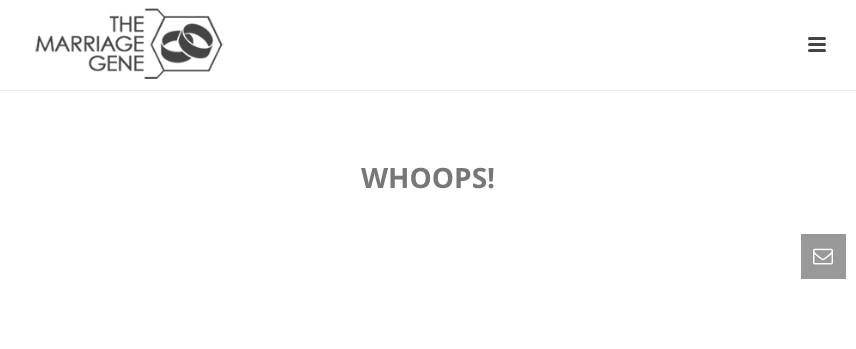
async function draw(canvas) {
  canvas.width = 856
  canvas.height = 349
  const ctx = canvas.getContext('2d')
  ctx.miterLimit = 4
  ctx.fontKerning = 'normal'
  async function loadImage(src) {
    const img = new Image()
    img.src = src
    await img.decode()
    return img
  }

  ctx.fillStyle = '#fff'
  ctx.fillRect(0, 0, 856, 349)
  ctx.fillStyle = '#ededed'
  ctx.fillRect(0, 90, 856, 1)
  ctx.drawImage(await loadImage('image0.png'), 35, 8, 189, 71)
  ctx.fillStyle = '#444'
  ctx.beginPath()
  ctx.roundRect(808, 37, 18, 3, 1.5)
  ctx.fill()
  ctx.beginPath()
  ctx.roundRect(808, 43, 18, 3, 1.5)
  ctx.fill()
  ctx.beginPath()
  ctx.roundRect(808, 49, 18, 3, 1.5)
  ctx.fill()
  ctx.font = 'bold 28px Open Sans'
  ctx.fillStyle = '#777'
  ctx.fillText('WHOOPS!', 361, 188)
  ctx.fillStyle = '#999'
  ctx.fillRect(801, 234, 45, 45)
  ctx.drawImage(await loadImage('image1.png'), 813, 248, 20, 17)
}

draw(document.querySelector('canvas'))
